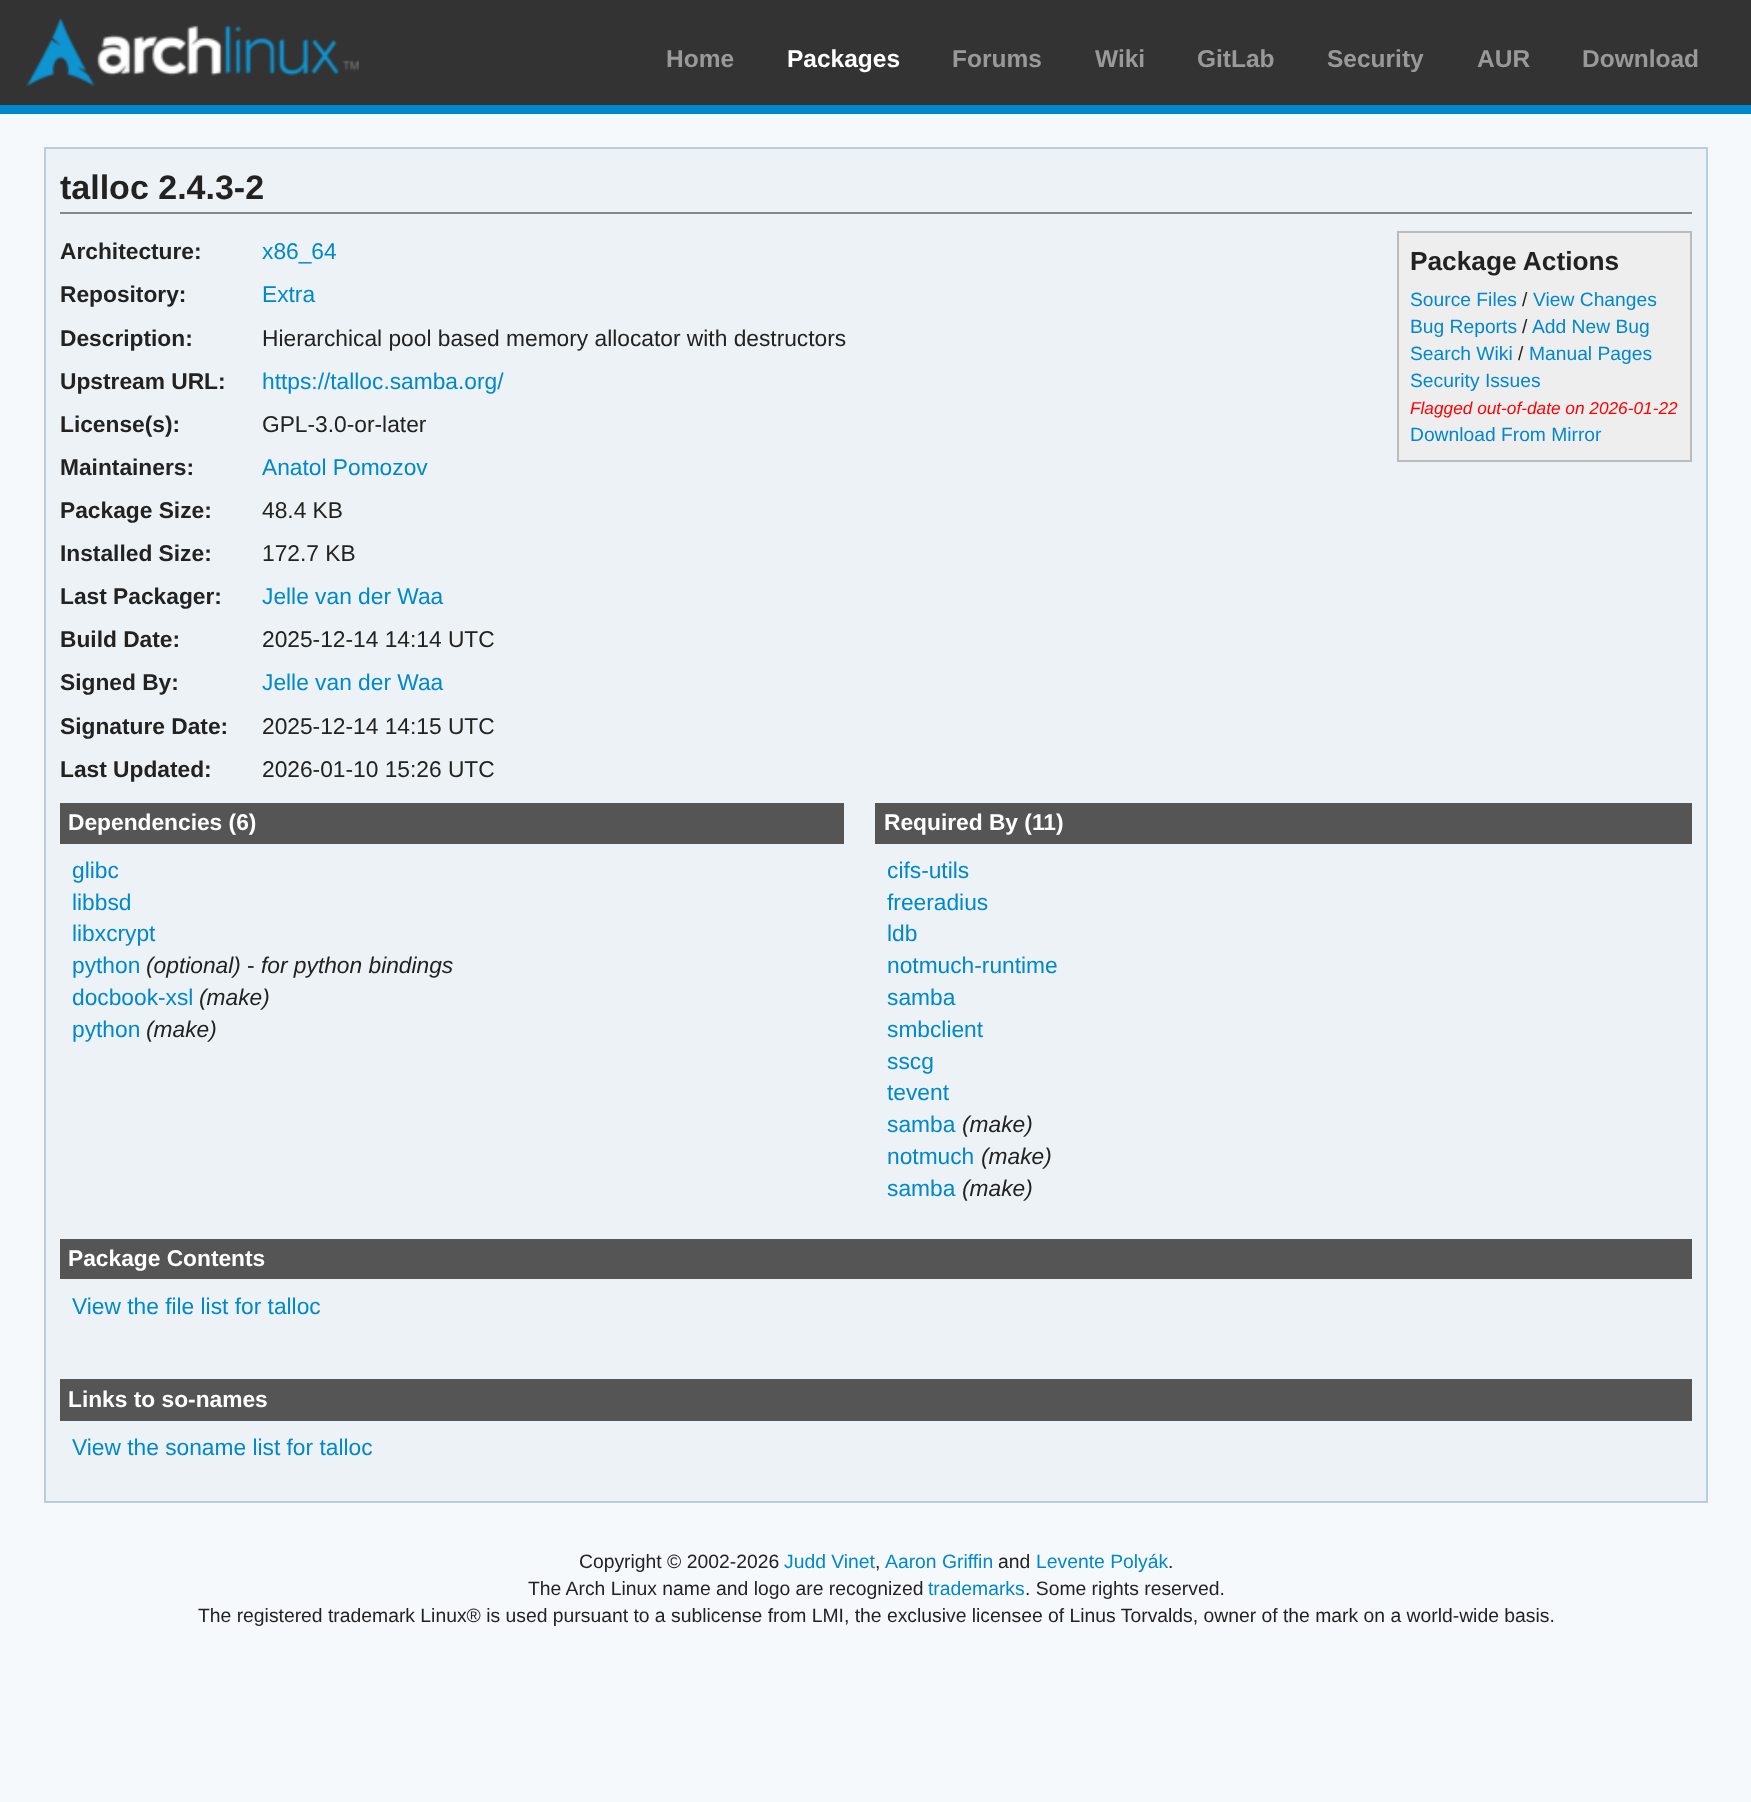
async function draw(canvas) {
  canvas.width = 1751
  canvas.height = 1802
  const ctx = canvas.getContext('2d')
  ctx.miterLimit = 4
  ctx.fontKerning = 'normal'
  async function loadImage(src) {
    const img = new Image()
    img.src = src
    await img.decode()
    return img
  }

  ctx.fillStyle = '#f6f9fc'
  ctx.fillRect(0, 0, 1751, 1802)
  ctx.fillStyle = '#333'
  ctx.fillRect(0, 0, 1751, 105)
  ctx.fillStyle = '#08c'
  ctx.fillRect(0, 105, 1751, 9)
  ctx.drawImage(await loadImage('image0.png'), 26, 17, 333, 70)
  ctx.font = 'bold 24.5px Liberation Sans'
  ctx.fillStyle = '#999'
  ctx.fillText('Home', 666, 67)
  ctx.fillStyle = '#fff'
  ctx.fillText('Packages', 787, 67)
  ctx.fillStyle = '#999'
  ctx.fillText('Forums', 952, 67)
  ctx.fillText('Wiki', 1095, 67)
  ctx.fillText('GitLab', 1197, 67)
  ctx.fillText('Security', 1327, 67)
  ctx.fillText('AUR', 1477, 67)
  ctx.fillText('Download', 1582, 67)
  ctx.fillStyle = '#ecf2f5'
  ctx.beginPath()
  ctx.rect(45, 148, 1662, 1354)
  ctx.fill()
  ctx.strokeStyle = '#bcd'
  ctx.lineWidth = 2
  ctx.stroke()
  ctx.fillStyle = '#888'
  ctx.fillRect(60, 212, 1632, 2)
  ctx.font = 'bold 34px Liberation Sans'
  ctx.fillStyle = '#222'
  ctx.fillText('talloc 2.4.3-2', 60, 199)
  ctx.font = 'bold 22.75px Liberation Sans'
  ctx.fillText('Architecture:', 60, 259)
  ctx.font = '22.75px Liberation Sans'
  ctx.fillStyle = '#08c'
  ctx.fillText('x86_64', 262, 259)
  ctx.font = 'bold 22.75px Liberation Sans'
  ctx.fillStyle = '#222'
  ctx.fillText('Repository:', 60, 302)
  ctx.font = '22.75px Liberation Sans'
  ctx.fillStyle = '#08c'
  ctx.fillText('Extra', 262, 302)
  ctx.font = 'bold 22.75px Liberation Sans'
  ctx.fillStyle = '#222'
  ctx.fillText('Description:', 60, 346)
  ctx.font = '22.75px Liberation Sans'
  ctx.fillText('Hierarchical pool based memory allocator with destructors', 262, 346)
  ctx.font = 'bold 22.75px Liberation Sans'
  ctx.fillText('Upstream URL:', 60, 389)
  ctx.font = '22.75px Liberation Sans'
  ctx.fillStyle = '#08c'
  ctx.fillText('https://talloc.samba.org/', 262, 389)
  ctx.font = 'bold 22.75px Liberation Sans'
  ctx.fillStyle = '#222'
  ctx.fillText('License(s):', 60, 432)
  ctx.font = '22.75px Liberation Sans'
  ctx.fillText('GPL-3.0-or-later', 262, 432)
  ctx.font = 'bold 22.75px Liberation Sans'
  ctx.fillText('Maintainers:', 60, 475)
  ctx.font = '22.75px Liberation Sans'
  ctx.fillStyle = '#08c'
  ctx.fillText('Anatol Pomozov', 262, 475)
  ctx.font = 'bold 22.75px Liberation Sans'
  ctx.fillStyle = '#222'
  ctx.fillText('Package Size:', 60, 518)
  ctx.font = '22.75px Liberation Sans'
  ctx.fillText('48.4 KB', 262, 518)
  ctx.font = 'bold 22.75px Liberation Sans'
  ctx.fillText('Installed Size:', 60, 561)
  ctx.font = '22.75px Liberation Sans'
  ctx.fillText('172.7 KB', 262, 561)
  ctx.font = 'bold 22.75px Liberation Sans'
  ctx.fillText('Last Packager:', 60, 604)
  ctx.font = '22.75px Liberation Sans'
  ctx.fillStyle = '#08c'
  ctx.fillText('Jelle van der Waa', 262, 604)
  ctx.font = 'bold 22.75px Liberation Sans'
  ctx.fillStyle = '#222'
  ctx.fillText('Build Date:', 60, 647)
  ctx.font = '22.75px Liberation Sans'
  ctx.fillText('2025-12-14 14:14 UTC', 262, 647)
  ctx.font = 'bold 22.75px Liberation Sans'
  ctx.fillText('Signed By:', 60, 690)
  ctx.font = '22.75px Liberation Sans'
  ctx.fillStyle = '#08c'
  ctx.fillText('Jelle van der Waa', 262, 690)
  ctx.font = 'bold 22.75px Liberation Sans'
  ctx.fillStyle = '#222'
  ctx.fillText('Signature Date:', 60, 734)
  ctx.font = '22.75px Liberation Sans'
  ctx.fillText('2025-12-14 14:15 UTC', 262, 734)
  ctx.font = 'bold 22.75px Liberation Sans'
  ctx.fillText('Last Updated:', 60, 777)
  ctx.font = '22.75px Liberation Sans'
  ctx.fillText('2026-01-10 15:26 UTC', 262, 777)
  ctx.fillStyle = '#eee'
  ctx.beginPath()
  ctx.rect(1398, 232, 293, 229)
  ctx.fill()
  ctx.strokeStyle = '#bbb'
  ctx.stroke()
  ctx.font = 'bold 26.25px Liberation Sans'
  ctx.fillStyle = '#222'
  ctx.fillText('Package Actions', 1410, 270)
  ctx.font = '19.25px Liberation Sans'
  ctx.fillStyle = '#08c'
  ctx.fillText('Source Files', 1410, 306)
  ctx.fillStyle = '#222'
  ctx.fillText('/', 1522, 306)
  ctx.fillStyle = '#08c'
  ctx.fillText('View Changes', 1533, 306)
  ctx.fillText('Bug Reports', 1410, 333)
  ctx.fillStyle = '#222'
  ctx.fillText('/', 1522, 333)
  ctx.fillStyle = '#08c'
  ctx.fillText('Add New Bug', 1532, 333)
  ctx.fillText('Search Wiki', 1410, 360)
  ctx.fillStyle = '#222'
  ctx.fillText('/', 1518, 360)
  ctx.fillStyle = '#08c'
  ctx.fillText('Manual Pages', 1529, 360)
  ctx.fillText('Security Issues', 1410, 387)
  ctx.font = 'italic 17.25px Liberation Sans'
  ctx.fillStyle = '#f00'
  ctx.fillText('Flagged out-of-date on 2026-01-22', 1410, 414)
  ctx.font = '19.25px Liberation Sans'
  ctx.fillStyle = '#08c'
  ctx.fillText('Download From Mirror', 1410, 441)
  ctx.fillStyle = '#555'
  ctx.fillRect(60, 803, 784, 41)
  ctx.font = 'bold 22.75px Liberation Sans'
  ctx.fillStyle = '#fff'
  ctx.fillText('Dependencies (6)', 68, 830)
  ctx.font = '22.75px Liberation Sans'
  ctx.fillStyle = '#08c'
  ctx.fillText('glibc', 72, 878)
  ctx.fillText('libbsd', 72, 910)
  ctx.fillText('libxcrypt', 72, 941)
  ctx.fillText('python', 72, 973)
  ctx.font = 'italic 22.75px Liberation Sans'
  ctx.fillStyle = '#222'
  ctx.fillText('(optional)', 146, 973)
  ctx.font = '22.75px Liberation Sans'
  ctx.fillText('-', 247, 973)
  ctx.font = 'italic 22.75px Liberation Sans'
  ctx.fillText('for python bindings', 261, 973)
  ctx.font = '22.75px Liberation Sans'
  ctx.fillStyle = '#08c'
  ctx.fillText('docbook-xsl', 72, 1005)
  ctx.font = 'italic 22.75px Liberation Sans'
  ctx.fillStyle = '#222'
  ctx.fillText('(make)', 199, 1005)
  ctx.font = '22.75px Liberation Sans'
  ctx.fillStyle = '#08c'
  ctx.fillText('python', 72, 1037)
  ctx.font = 'italic 22.75px Liberation Sans'
  ctx.fillStyle = '#222'
  ctx.fillText('(make)', 146, 1037)
  ctx.fillStyle = '#555'
  ctx.fillRect(875, 803, 817, 41)
  ctx.font = 'bold 22.75px Liberation Sans'
  ctx.fillStyle = '#fff'
  ctx.fillText('Required By (11)', 884, 830)
  ctx.font = '22.75px Liberation Sans'
  ctx.fillStyle = '#08c'
  ctx.fillText('cifs-utils', 887, 878)
  ctx.fillText('freeradius', 887, 910)
  ctx.fillText('ldb', 887, 941)
  ctx.fillText('notmuch-runtime', 887, 973)
  ctx.fillText('samba', 887, 1005)
  ctx.fillText('smbclient', 887, 1037)
  ctx.fillText('sscg', 887, 1069)
  ctx.fillText('tevent', 887, 1100)
  ctx.fillText('samba', 887, 1132)
  ctx.font = 'italic 22.75px Liberation Sans'
  ctx.fillStyle = '#222'
  ctx.fillText('(make)', 962, 1132)
  ctx.font = '22.75px Liberation Sans'
  ctx.fillStyle = '#08c'
  ctx.fillText('notmuch', 887, 1164)
  ctx.font = 'italic 22.75px Liberation Sans'
  ctx.fillStyle = '#222'
  ctx.fillText('(make)', 981, 1164)
  ctx.font = '22.75px Liberation Sans'
  ctx.fillStyle = '#08c'
  ctx.fillText('samba', 887, 1196)
  ctx.font = 'italic 22.75px Liberation Sans'
  ctx.fillStyle = '#222'
  ctx.fillText('(make)', 962, 1196)
  ctx.fillStyle = '#555'
  ctx.fillRect(60, 1239, 1632, 40)
  ctx.font = 'bold 22.75px Liberation Sans'
  ctx.fillStyle = '#fff'
  ctx.fillText('Package Contents', 68, 1266)
  ctx.font = '22.75px Liberation Sans'
  ctx.fillStyle = '#08c'
  ctx.fillText('View the file list for talloc', 72, 1314)
  ctx.fillStyle = '#555'
  ctx.fillRect(60, 1379, 1632, 42)
  ctx.font = 'bold 22.75px Liberation Sans'
  ctx.fillStyle = '#fff'
  ctx.fillText('Links to so-names', 68, 1407)
  ctx.font = '22.75px Liberation Sans'
  ctx.fillStyle = '#08c'
  ctx.fillText('View the soname list for talloc', 72, 1455)
  ctx.font = '19.33px Liberation Sans'
  ctx.fillStyle = '#222'
  ctx.fillText('Copyright © 2002-2026', 579, 1568)
  ctx.fillStyle = '#08c'
  ctx.fillText('Judd Vinet', 784, 1568)
  ctx.fillStyle = '#222'
  ctx.fillText(',', 875, 1568)
  ctx.fillStyle = '#08c'
  ctx.fillText('Aaron Griffin', 885, 1568)
  ctx.fillStyle = '#222'
  ctx.fillText('and', 998, 1568)
  ctx.fillStyle = '#08c'
  ctx.fillText('Levente Polyák', 1036, 1568)
  ctx.fillStyle = '#222'
  ctx.fillText('.', 1168, 1568)
  ctx.fillText('The Arch Linux name and logo are recognized', 528, 1595)
  ctx.fillStyle = '#08c'
  ctx.fillText('trademarks', 928, 1595)
  ctx.fillStyle = '#222'
  ctx.fillText('. Some rights reserved.', 1025, 1595)
  ctx.fillText('The registered trademark Linux® is used pursuant to a sublicense from LMI, the exclusive licensee of Linus Torvalds, owner of the mark on a world-wide basis.', 198, 1622)
}

draw(document.querySelector('canvas'))
